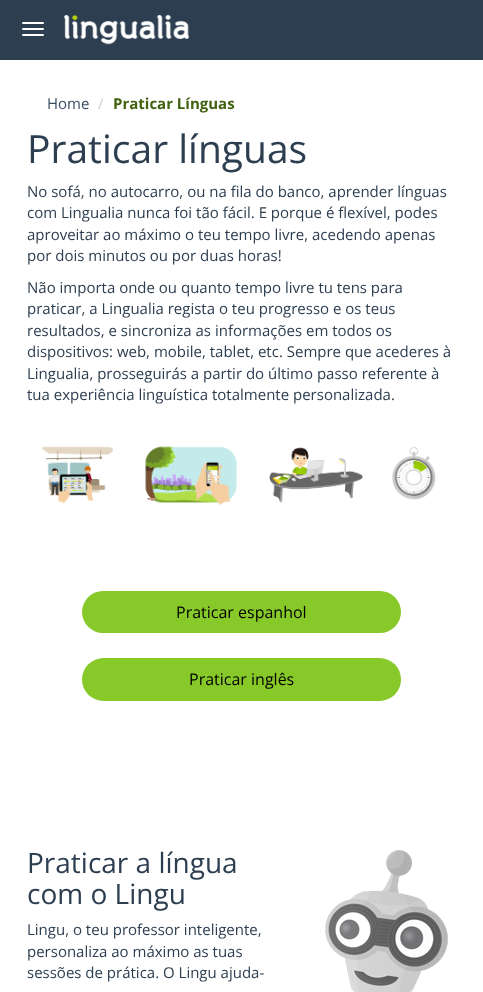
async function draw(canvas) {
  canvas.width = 483
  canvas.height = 992
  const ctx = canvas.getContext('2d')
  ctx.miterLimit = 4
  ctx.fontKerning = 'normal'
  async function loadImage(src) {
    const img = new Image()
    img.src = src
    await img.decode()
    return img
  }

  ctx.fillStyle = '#fff'
  ctx.fillRect(0, 0, 483, 992)
  ctx.fillStyle = '#2c3e50'
  ctx.fillRect(0, 0, 483, 60)
  ctx.fillStyle = '#fff'
  ctx.beginPath()
  ctx.roundRect(22, 22, 22, 2, 1)
  ctx.fill()
  ctx.beginPath()
  ctx.roundRect(22, 28, 22, 2, 1)
  ctx.fill()
  ctx.beginPath()
  ctx.roundRect(22, 34, 22, 2, 1)
  ctx.fill()
  ctx.drawImage(await loadImage('image0.png'), 64, 15, 125, 30)
  ctx.font = '15px Open Sans'
  ctx.fillStyle = '#384d63'
  ctx.fillText('Home', 47, 109)
  ctx.fillStyle = '#ccc'
  ctx.fillText('/', 98, 109)
  ctx.font = 'bold 15px Open Sans'
  ctx.fillStyle = '#406211'
  ctx.fillText('Praticar Línguas', 113, 109)
  ctx.font = '39px Open Sans'
  ctx.fillStyle = '#2c3e50'
  ctx.fillText('Praticar línguas', 27, 163)
  ctx.font = '15px Open Sans'
  ctx.fillText('No sofá, no autocarro, ou na fila do banco, aprender línguas', 27, 197)
  ctx.fillText('com Lingualia nunca foi tão fácil. E porque é flexível, podes', 27, 218)
  ctx.fillText('aproveitar ao máximo o teu tempo livre, acedendo apenas', 27, 240)
  ctx.fillText('por dois minutos ou por duas horas!', 27, 261)
  ctx.fillText('Não importa onde ou quanto tempo livre tu tens para', 27, 293)
  ctx.fillText('praticar, a Lingualia regista o teu progresso e os teus', 27, 314)
  ctx.fillText('resultados, e sincroniza as informações em todos os', 27, 336)
  ctx.fillText('dispositivos: web, mobile, tablet, etc. Sempre que acederes à', 27, 357)
  ctx.fillText('Lingualia, prosseguirás a partir do último passo referente à', 27, 379)
  ctx.fillText('tua experiência linguística totalmente personalizada.', 27, 400)
  ctx.drawImage(await loadImage('image1.png'), 41, 446, 395, 59)
  ctx.fillStyle = '#88c92a'
  ctx.beginPath()
  ctx.roundRect(82, 591, 319, 42, 21)
  ctx.fill()
  ctx.font = '16px Open Sans'
  ctx.fillStyle = '#000'
  ctx.fillText('Praticar espanhol', 176, 618)
  ctx.fillStyle = '#88c92a'
  ctx.beginPath()
  ctx.roundRect(82, 658, 319, 43, 21.5)
  ctx.fill()
  ctx.fillStyle = '#000'
  ctx.fillText('Praticar inglês', 189, 685)
  ctx.font = '28px Open Sans'
  ctx.fillStyle = '#2c3e50'
  ctx.fillText('Praticar a língua', 27, 873)
  ctx.fillText('com o Lingu', 27, 904)
  ctx.drawImage(await loadImage('image2.png'), 325, 850, 123, 142)
  ctx.font = '15px Open Sans'
  ctx.fillText('Lingu, o teu professor inteligente,', 27, 935)
  ctx.fillText('personaliza ao máximo as tuas', 27, 957)
  ctx.fillText('sessões de prática. O Lingu ajuda-', 27, 978)
}

draw(document.querySelector('canvas'))
